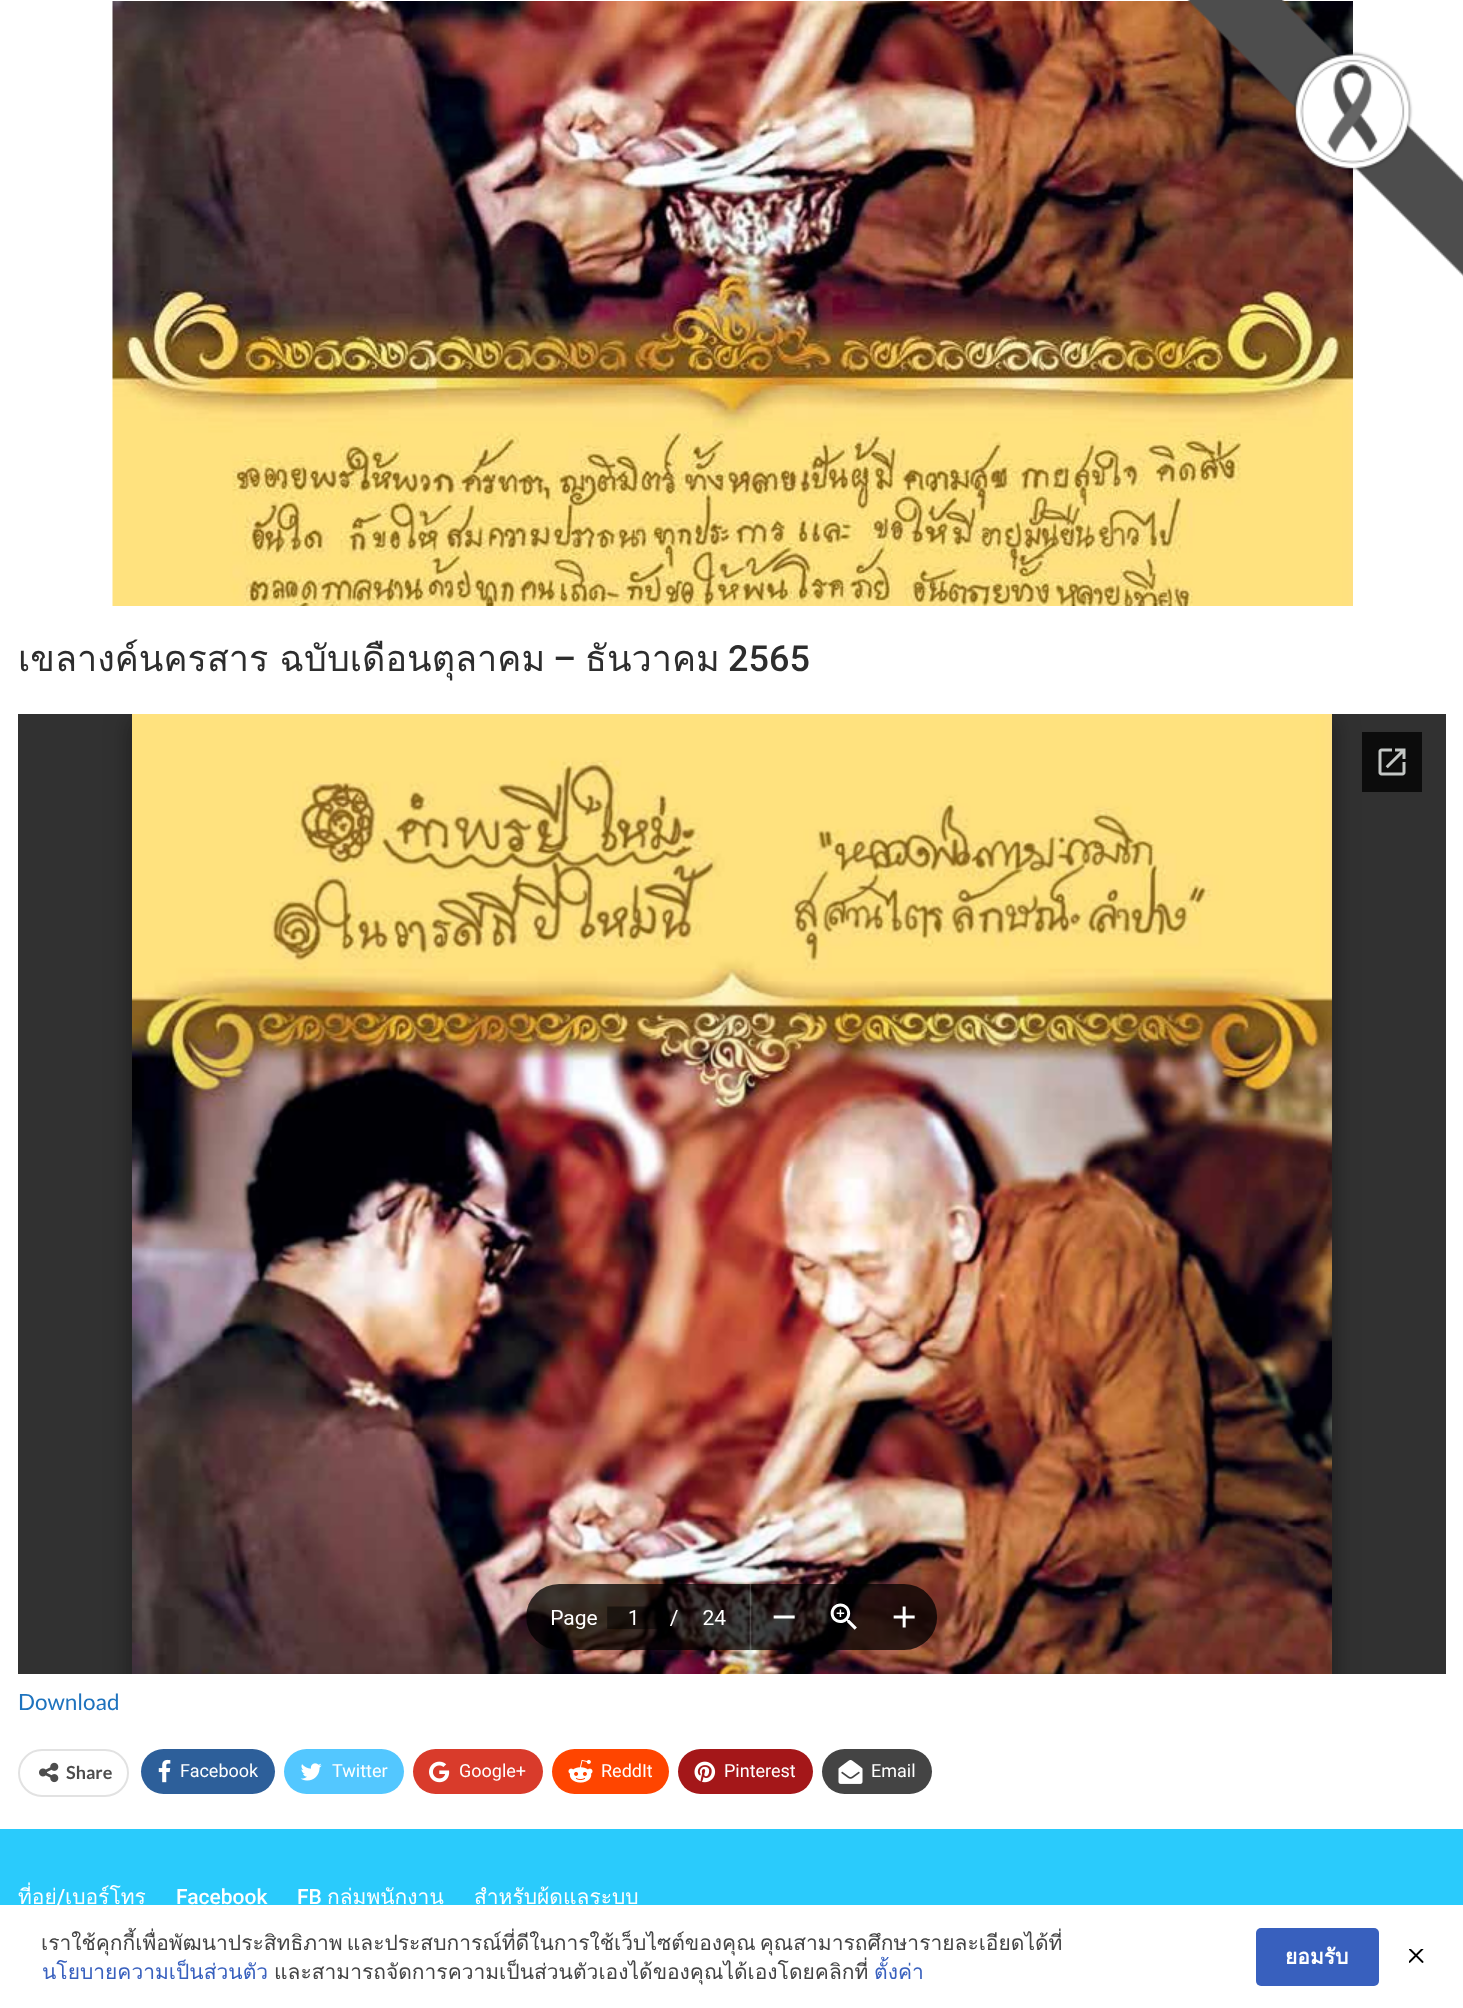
async function draw(canvas) {
  canvas.width = 1463
  canvas.height = 2008
  const ctx = canvas.getContext('2d')
  ctx.miterLimit = 4
  ctx.fontKerning = 'normal'
  async function loadImage(src) {
    const img = new Image()
    img.src = src
    await img.decode()
    return img
  }

  ctx.fillStyle = '#fff'
  ctx.fillRect(0, 0, 1463, 2008)
  ctx.drawImage(await loadImage('image1.png'), 112, 1, 1241, 605)
  ctx.drawImage(await loadImage('image0.png'), 1187, 0, 276, 277)
  ctx.wordSpacing = '-1px'
  ctx.font = '36px Loma'
  ctx.fillStyle = '#2d2d2d'
  ctx.fillText('เขลางค์นครสาร ฉบับเดือนตุลาคม', 18, 671)
  ctx.wordSpacing = '0px'
  ctx.font = '500 36px Roboto'
  ctx.fillText('–', 553, 671)
  ctx.font = '36px Loma'
  ctx.fillText('ธันวาคม', 585, 671)
  ctx.font = '500 36px Roboto'
  ctx.fillText('2565', 728, 671)
  ctx.drawImage(await loadImage('image2.png'), 18, 714, 1428, 960)
  ctx.font = '22.5px Lato'
  ctx.fillStyle = '#1e73be'
  ctx.fillText('Download', 18, 1710)
  ctx.beginPath()
  ctx.roundRect(19, 1750, 109, 46, 23)
  ctx.strokeStyle = '#e2e2e2'
  ctx.lineWidth = 2
  ctx.stroke()
  ctx.drawImage(await loadImage('image3.png'), 39, 1762, 20, 21)
  ctx.font = 'bold 18px Lato'
  ctx.fillStyle = '#4d4d4d'
  ctx.fillText('Share', 66, 1779)
  ctx.fillStyle = '#2d5f9a'
  ctx.beginPath()
  ctx.roundRect(141, 1749, 134, 45, 22.5)
  ctx.fill()
  ctx.drawImage(await loadImage('image4.png'), 158, 1759, 13, 24)
  ctx.font = '18px Roboto'
  ctx.fillStyle = '#fff'
  ctx.fillText('Facebook', 180, 1777)
  ctx.fillStyle = '#53c7ff'
  ctx.beginPath()
  ctx.roundRect(284, 1749, 120, 45, 22.5)
  ctx.fill()
  ctx.drawImage(await loadImage('image5.png'), 300, 1763, 22, 18)
  ctx.fillStyle = '#fff'
  ctx.fillText('Twitter', 332, 1777)
  ctx.fillStyle = '#d93b2b'
  ctx.beginPath()
  ctx.roundRect(413, 1749, 130, 45, 22.5)
  ctx.fill()
  ctx.drawImage(await loadImage('image6.png'), 429, 1761, 21, 22)
  ctx.fillStyle = '#fff'
  ctx.fillText('Google+', 459, 1777)
  ctx.fillStyle = '#ff4500'
  ctx.beginPath()
  ctx.roundRect(552, 1749, 117, 45, 22.5)
  ctx.fill()
  ctx.drawImage(await loadImage('image7.png'), 568, 1759, 25, 24)
  ctx.fillStyle = '#fff'
  ctx.fillText('ReddIt', 601, 1777)
  ctx.fillStyle = '#a41719'
  ctx.beginPath()
  ctx.roundRect(678, 1749, 135, 45, 22.5)
  ctx.fill()
  ctx.drawImage(await loadImage('image8.png'), 694, 1761, 22, 22)
  ctx.fillStyle = '#fff'
  ctx.fillText('Pinterest', 724, 1777)
  ctx.fillStyle = '#444'
  ctx.beginPath()
  ctx.roundRect(822, 1749, 110, 45, 22.5)
  ctx.fill()
  ctx.drawImage(await loadImage('image9.png'), 838, 1760, 25, 24)
  ctx.fillStyle = '#fff'
  ctx.fillText('Email', 871, 1777)
  ctx.fillStyle = '#2acbfc'
  ctx.fillRect(0, 1829, 1463, 76)
  ctx.font = '21px Loma'
  ctx.fillStyle = '#fff'
  ctx.fillText('ที่อยู่', 18, 1904)
  ctx.font = '500 21px Roboto'
  ctx.fillText('/', 57, 1904)
  ctx.font = '21px Loma'
  ctx.fillText('เบอร์โทร', 65, 1904)
  ctx.font = '500 21px Roboto'
  ctx.fillText('Facebook', 176, 1904)
  ctx.fillText('FB', 297, 1904)
  ctx.font = '21px Loma'
  ctx.fillText('กลุ่มพนักงาน', 327, 1904)
  ctx.fillText('สำหรับผู้ดูแลระบบ', 474, 1904)
  ctx.wordSpacing = '-3px'
  ctx.fillStyle = '#444'
  ctx.fillText('เราใช้คุกกี้เพื่อพัฒนาประสิทธิภาพ และประสบการณ์ที่ดีในการใช้เว็บไซต์ของคุณ คุณสามารถศึกษารายละเอียดได้ที่', 41, 1950)
  ctx.wordSpacing = '0px'
  ctx.fillStyle = '#3860be'
  ctx.fillText('นโยบายความเป็นส่วนตัว', 42, 1979)
  ctx.fillStyle = '#444'
  ctx.fillText('และสามารถจัดการความเป็นส่วนตัวเองได้ของคุณได้เองโดยคลิกที่', 274, 1979)
  ctx.fillStyle = '#3860be'
  ctx.fillText('ตั้งค่า', 874, 1979)
  ctx.beginPath()
  ctx.roundRect(1256, 1928, 123, 58, 5)
  ctx.fill()
  ctx.font = 'bold 21px Loma'
  ctx.fillStyle = '#fff'
  ctx.fillText('ยอมรับ', 1285, 1964)
  ctx.drawImage(await loadImage('image10.png'), 1409, 1949, 15, 14)
}

draw(document.querySelector('canvas'))
